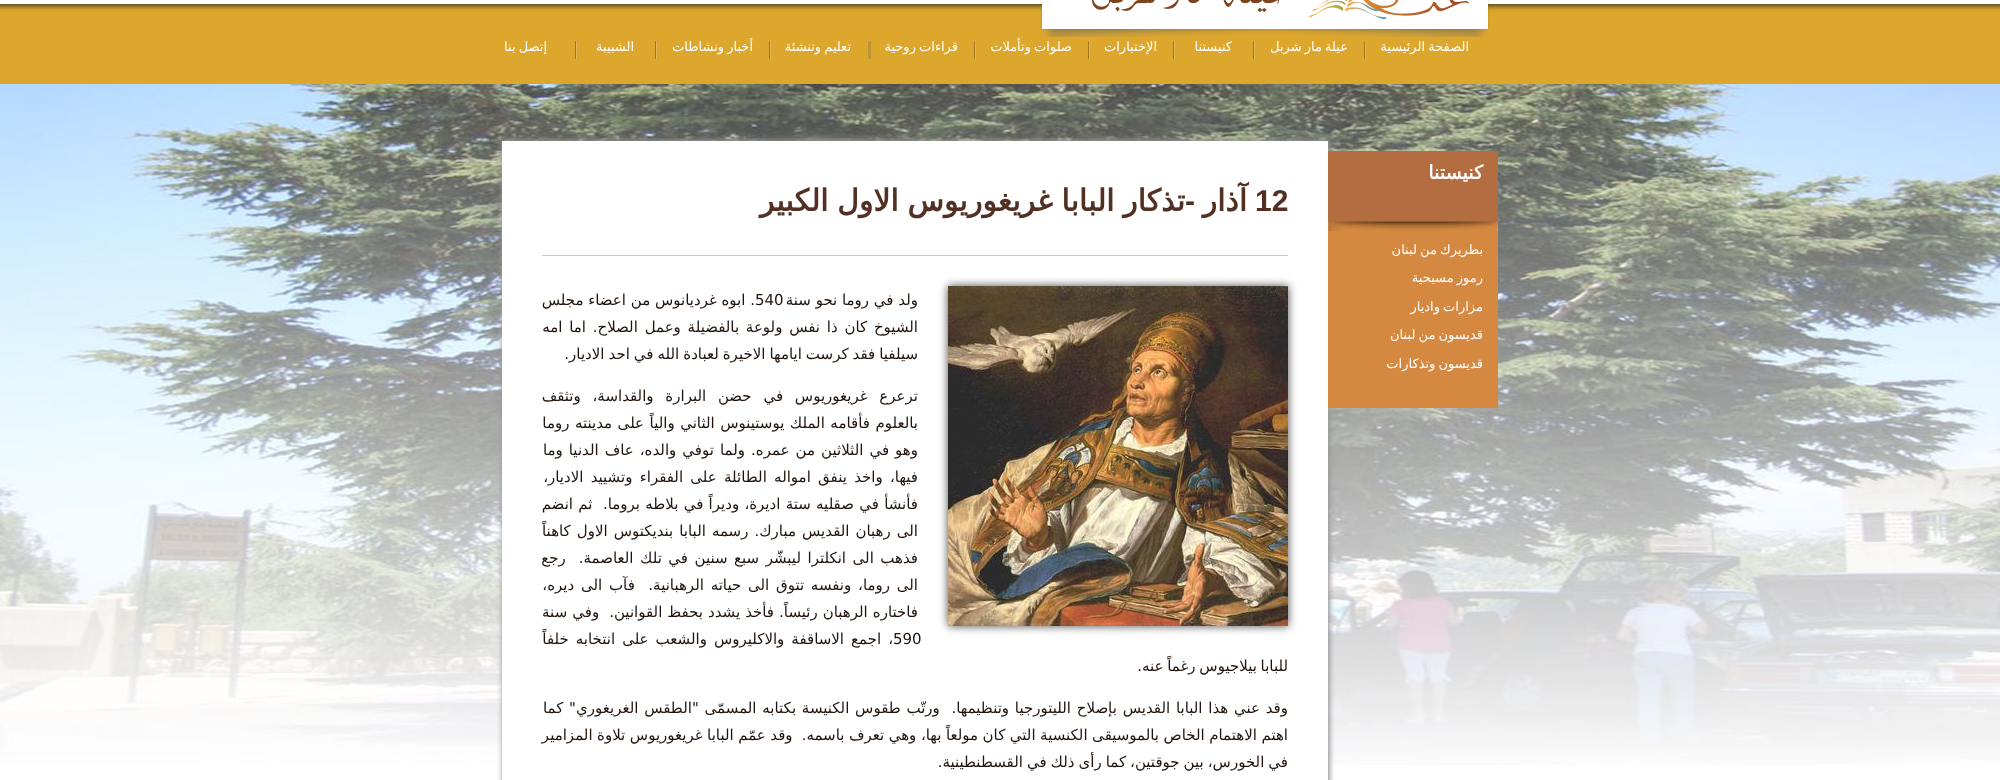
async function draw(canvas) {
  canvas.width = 2000
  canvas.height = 780
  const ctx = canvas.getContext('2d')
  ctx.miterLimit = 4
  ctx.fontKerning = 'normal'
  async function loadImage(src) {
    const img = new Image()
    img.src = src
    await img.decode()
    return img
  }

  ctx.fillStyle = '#fff'
  ctx.fillRect(0, 0, 2000, 780)
  ctx.drawImage(await loadImage('image1.png'), 0, 4, 2000, 80)
  ctx.drawImage(await loadImage('image0.png'), 1040, 0, 450, 37)
  ctx.drawImage(await loadImage('image2.png'), 1364, 41, 2, 18)
  ctx.wordSpacing = '-1px'
  ctx.direction = 'rtl'
  ctx.font = '13px DejaVu Sans'
  ctx.fillText('الصفحة الرئيسية', 1469, 51)
  ctx.drawImage(await loadImage('image2.png'), 1253, 41, 2, 18)
  ctx.fillText('عيلة مار شربل', 1348, 51)
  ctx.drawImage(await loadImage('image2.png'), 1173, 41, 2, 18)
  ctx.wordSpacing = '0px'
  ctx.fillText('كنيستنا', 1232, 51)
  ctx.drawImage(await loadImage('image2.png'), 1088, 41, 2, 18)
  ctx.fillText('الإختبارات', 1157, 51)
  ctx.drawImage(await loadImage('image2.png'), 974, 41, 2, 18)
  ctx.wordSpacing = '-1px'
  ctx.fillText('صلوات وتأملات', 1072, 51)
  ctx.fillStyle = '#bd9436'
  ctx.fillRect(868, 41, 3, 18)
  ctx.fillStyle = '#fff'
  ctx.fillText('قراءات روحية', 958, 51)
  ctx.drawImage(await loadImage('image2.png'), 769, 41, 2, 18)
  ctx.fillText('تعليم وتنشئة', 851, 51)
  ctx.drawImage(await loadImage('image2.png'), 655, 41, 2, 18)
  ctx.fillText('أخبار ونشاطات', 753, 51)
  ctx.drawImage(await loadImage('image2.png'), 575, 41, 2, 18)
  ctx.wordSpacing = '0px'
  ctx.fillText('الشبيبة', 634, 51)
  ctx.wordSpacing = '-1px'
  ctx.fillText('إتصل بنا', 547, 51)
  ctx.drawImage(await loadImage('image5.png'), 0, 84, 2000, 681)
  ctx.fillStyle = '#999'
  ctx.filter = 'blur(2.5px)'
  ctx.beginPath()
  ctx.rect(502, 140, 828, 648)
  ctx.fill()
  ctx.filter = 'none'
  ctx.fillStyle = '#d5883f'
  ctx.fillRect(1328, 231, 170, 177)
  ctx.fillStyle = '#b36d41'
  ctx.fillRect(1328, 151, 170, 70)
  ctx.drawImage(await loadImage('image3.png'), 1328, 221, 170, 10)
  ctx.wordSpacing = '0px'
  ctx.font = 'bold 19px DejaVu Sans'
  ctx.fillStyle = '#fff'
  ctx.fillText('كنيستنا', 1483, 179)
  ctx.wordSpacing = '-1px'
  ctx.font = '13px DejaVu Sans'
  ctx.fillText('بطريرك من لبنان', 1483, 254)
  ctx.fillText('رموز مسيحية', 1483, 282)
  ctx.fillText('مزارات واديار', 1483, 311)
  ctx.fillText('قديسون من لبنان', 1483, 339)
  ctx.fillText('قديسون وتذكارات', 1483, 368)
  ctx.fillRect(502, 141, 826, 639)
  ctx.fillStyle = '#ccc'
  ctx.fillRect(542, 255, 746, 1)
  ctx.wordSpacing = '0px'
  ctx.direction = 'ltr'
  ctx.font = 'bold 30px Liberation Sans'
  ctx.fillStyle = '#523124'
  ctx.fillText('12', 1255, 211)
  ctx.direction = 'rtl'
  ctx.font = 'bold 30px DejaVu Sans'
  ctx.fillText('آذار', 1247, 211)
  ctx.wordSpacing = '-1px'
  ctx.fillText('تذكار البابا غريغوريوس الاول الكبير', 1185, 211)
  ctx.wordSpacing = '0px'
  ctx.font = 'bold 30px Liberation Sans'
  ctx.fillText('-', 1195, 211)
  ctx.fillStyle = '#4a4a4a'
  ctx.filter = 'blur(5px)'
  ctx.beginPath()
  ctx.rect(948, 286, 340, 340)
  ctx.fill()
  ctx.filter = 'none'
  ctx.drawImage(await loadImage('image4.png'), 948, 286, 340, 340)
  ctx.font = '15px DejaVu Sans'
  ctx.fillStyle = '#21140c'
  ctx.fillText('ولد في روما نحو سنة', 918, 305)
  ctx.direction = 'ltr'
  ctx.fillText('540', 755, 305)
  ctx.direction = 'rtl'
  ctx.fillText('. ابوه غرديانوس من اعضاء مجلس', 755, 305)
  ctx.wordSpacing = '2px'
  ctx.fillText('الشيوخ كان ذا نفس ولوعة بالفضيلة وعمل الصلاح. اما امه', 918, 332)
  ctx.wordSpacing = '-0.75px'
  ctx.fillText('سيلفيا فقد كرست ايامها الاخيرة لعبادة الله في احد الاديار.', 918, 359)
  ctx.wordSpacing = '7px'
  ctx.fillText('ترعرع غريغوريوس في حضن البرارة والقداسة، وتثقف', 918, 401)
  ctx.wordSpacing = '0.75px'
  ctx.fillText('بالعلوم فأقامه الملك يوستينوس الثاني والياً على مدينته روما', 918, 428)
  ctx.wordSpacing = '1.25px'
  ctx.fillText('وهو في الثلاثين من عمره. ولما توفي والده، عاف الدنيا وما', 918, 455)
  ctx.wordSpacing = '2.5px'
  ctx.fillText('فيها، واخذ ينفق امواله الطائلة على الفقراء وتشييد الاديار،', 918, 482)
  ctx.wordSpacing = '0.5px'
  ctx.fillText('فأنشأ في صقليه ستة اديرة، وديراً في بلاطه بروما.  ثم انضم', 918, 509)
  ctx.wordSpacing = '1.25px'
  ctx.fillText('الى رهبان القديس مبارك. رسمه البابا بنديكتوس الاول كاهناً', 918, 536)
  ctx.wordSpacing = '1.75px'
  ctx.fillText('فذهب الى انكلترا ليبشّر سبع سنين في تلك العاصمة.  رجع', 918, 563)
  ctx.wordSpacing = '2px'
  ctx.fillText('الى روما، ونفسه تتوق الى حياته الرهبانية.  فآب الى ديره،', 918, 590)
  ctx.wordSpacing = '0.25px'
  ctx.fillText('فاختاره الرهبان رئيساً. فأخذ يشدد بحفظ القوانين.  وفي سنة', 918, 617)
  ctx.wordSpacing = '0px'
  ctx.direction = 'ltr'
  ctx.fillText('590', 893, 644)
  ctx.wordSpacing = '2.25px'
  ctx.direction = 'rtl'
  ctx.fillText('، اجمع الاساقفة والاكليروس والشعب على انتخابه خلفاً', 893, 644)
  ctx.wordSpacing = '-1px'
  ctx.fillText('للبابا بيلاجيوس رغماً عنه.', 1288, 671)
  ctx.wordSpacing = '1px'
  ctx.fillText('وقد عني هذا البابا القديس بإصلاح الليتورجيا وتنظيمها.  ورتّب طقوس الكنيسة بكتابه المسمّى "الطقس الغريغوري" كما', 1288, 713)
  ctx.wordSpacing = '-0.25px'
  ctx.fillText('اهتم الاهتمام الخاص بالموسيقى الكنسية التي كان مولعاً بها، وهي تعرف باسمه.  وقد عمّم البابا غريغوريوس تلاوة المزامير', 1288, 740)
  ctx.wordSpacing = '-0.75px'
  ctx.fillText('في الخورس، بين جوقتين، كما رأى ذلك في القسطنطينية.', 1288, 767)
}

draw(document.querySelector('canvas'))
